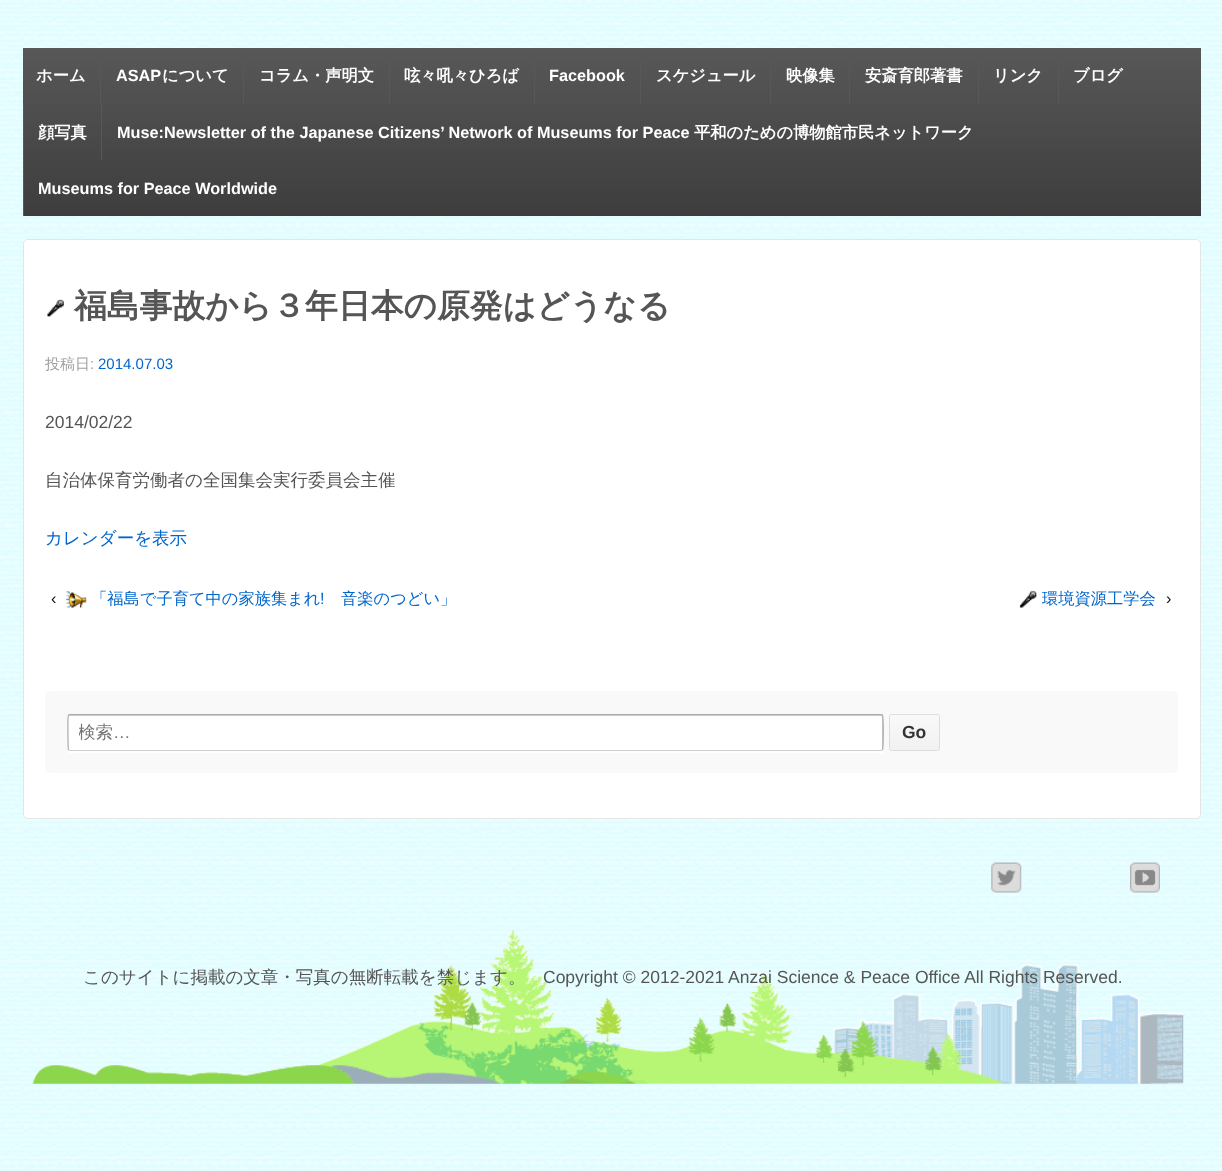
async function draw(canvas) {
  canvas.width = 1222
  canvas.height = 1171
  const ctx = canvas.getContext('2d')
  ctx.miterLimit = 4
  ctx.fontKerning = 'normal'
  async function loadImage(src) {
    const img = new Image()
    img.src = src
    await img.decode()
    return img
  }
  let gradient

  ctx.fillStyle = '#fff'
  ctx.fillRect(0, 0, 1222, 1171)
  ctx.drawImage(await loadImage('image0.png'), 0, 0, 1222, 1171)
  gradient = ctx.createLinearGradient(612, 47, 612, 216)
  gradient.addColorStop(0, '#585858')
  gradient.addColorStop(1, '#3d3d3d')
  ctx.fillStyle = gradient
  ctx.fillRect(23, 48, 1178, 168)
  ctx.font = 'bold 16.25px WenQuanYi Zen Hei'
  ctx.fillStyle = '#fff'
  ctx.fillText('ホーム', 36, 81)
  ctx.fillStyle = '#585858'
  ctx.fillRect(100, 63, 1, 41)
  ctx.font = 'bold 16.25px Liberation Sans'
  ctx.fillStyle = '#fff'
  ctx.fillText('ASAP', 116, 81)
  ctx.font = 'bold 16.25px WenQuanYi Zen Hei'
  ctx.fillText('について', 162, 81)
  ctx.fillStyle = '#585858'
  ctx.fillRect(243, 63, 1, 41)
  ctx.fillStyle = '#fff'
  ctx.fillText('コラム・声明文', 259, 81)
  ctx.fillStyle = '#585858'
  ctx.fillRect(389, 63, 1, 41)
  ctx.fillStyle = '#fff'
  ctx.fillText('呟々吼々ひろば', 404, 81)
  ctx.fillStyle = '#585858'
  ctx.fillRect(534, 63, 1, 41)
  ctx.font = 'bold 16.25px Liberation Sans'
  ctx.fillStyle = '#fff'
  ctx.fillText('Facebook', 549, 81)
  ctx.fillStyle = '#585858'
  ctx.fillRect(640, 63, 1, 41)
  ctx.font = 'bold 16.25px WenQuanYi Zen Hei'
  ctx.fillStyle = '#fff'
  ctx.fillText('スケジュール', 656, 81)
  ctx.fillStyle = '#585858'
  ctx.fillRect(770, 63, 1, 41)
  ctx.fillStyle = '#fff'
  ctx.fillText('映像集', 786, 81)
  ctx.fillStyle = '#585858'
  ctx.fillRect(849, 63, 1, 41)
  ctx.fillStyle = '#fff'
  ctx.fillText('安斎育郎著書', 865, 81)
  ctx.fillStyle = '#585858'
  ctx.fillRect(978, 63, 1, 41)
  ctx.fillStyle = '#fff'
  ctx.fillText('リンク', 993, 81)
  ctx.fillStyle = '#585858'
  ctx.fillRect(1058, 63, 1, 41)
  ctx.fillStyle = '#fff'
  ctx.fillText('ブログ', 1073, 81)
  ctx.fillStyle = '#585858'
  ctx.fillRect(23, 104, 1, 112)
  ctx.fillStyle = '#fff'
  ctx.fillText('顔写真', 38, 138)
  ctx.fillStyle = '#585858'
  ctx.fillRect(101, 104, 1, 56)
  ctx.font = 'bold 16.25px Liberation Sans'
  ctx.fillStyle = '#fff'
  ctx.fillText('Muse:Newsletter of the Japanese Citizens’ Network of Museums for Peace', 117, 138)
  ctx.font = 'bold 16.25px WenQuanYi Zen Hei'
  ctx.fillText('平和のための博物館市民ネットワーク', 694, 138)
  ctx.font = 'bold 16.25px Liberation Sans'
  ctx.fillText('Museums for Peace Worldwide', 38, 194)
  ctx.beginPath()
  ctx.roundRect(23.5, 239.5, 1177, 579, 4.5)
  ctx.fill()
  ctx.strokeStyle = '#e5e5e5'
  ctx.stroke()
  ctx.drawImage(await loadImage('image1.png'), 47, 299, 17, 18)
  ctx.font = 'bold 32.8px WenQuanYi Zen Hei'
  ctx.fillStyle = '#555'
  ctx.fillText('福島事故から３年日本の原発はどうなる', 74, 317)
  ctx.font = '500 15px WenQuanYi Zen Hei'
  ctx.fillStyle = '#9f9f9f'
  ctx.fillText('投稿日', 45, 369)
  ctx.font = '15px Liberation Sans'
  ctx.fillText(':', 90, 369)
  ctx.fillStyle = '#06c'
  ctx.fillText('2014.07.03', 98, 369)
  ctx.font = '17.5px Liberation Sans'
  ctx.fillStyle = '#555'
  ctx.fillText('2014/02/22', 45, 428)
  ctx.font = '500 17.5px WenQuanYi Zen Hei'
  ctx.fillText('自治体保育労働者の全国集会実行委員会主催', 45, 486)
  ctx.fillStyle = '#06c'
  ctx.fillText('カレンダーを表示', 45, 544)
  ctx.font = '16.25px Liberation Sans'
  ctx.fillStyle = '#111'
  ctx.fillText('‹', 51, 604)
  ctx.drawImage(await loadImage('image2.png'), 66, 591, 21, 17)
  ctx.font = '500 16.25px WenQuanYi Zen Hei'
  ctx.fillStyle = '#06c'
  ctx.fillText('「福島で子育て中の家族集まれ', 91, 604)
  ctx.font = '16.25px Liberation Sans'
  ctx.fillText('!', 320, 604)
  ctx.font = '500 16.25px WenQuanYi Zen Hei'
  ctx.fillText('音楽のつどい」', 341, 604)
  ctx.drawImage(await loadImage('image3.png'), 1019, 590, 18, 18)
  ctx.fillText('環境資源工学会', 1042, 604)
  ctx.font = '16.25px Liberation Sans'
  ctx.fillStyle = '#111'
  ctx.fillText('›', 1166, 604)
  ctx.fillStyle = '#f9f9f9'
  ctx.beginPath()
  ctx.roundRect(45, 691, 1133, 82, 5)
  ctx.fill()
  ctx.fillStyle = '#fff'
  ctx.beginPath()
  ctx.moveTo(68, 750)
  ctx.bezierCurveTo(68, 752, 69, 753, 70, 753)
  ctx.lineTo(882, 753)
  ctx.bezierCurveTo(885, 753, 884, 747, 884, 745)
  ctx.lineTo(884, 716)
  ctx.lineTo(884, 749)
  ctx.bezierCurveTo(884, 750, 883, 751, 881, 751)
  ctx.lineTo(70, 751)
  ctx.bezierCurveTo(69, 751, 68, 751, 68, 750)
  ctx.closePath()
  ctx.fill()
  ctx.beginPath()
  ctx.roundRect(68, 714, 816, 37, 2.5)
  ctx.fill()
  ctx.fillStyle = '#ccc'
  ctx.beginPath()
  ctx.moveTo(70, 716)
  ctx.lineTo(881, 716)
  ctx.bezierCurveTo(882, 716, 882, 717, 882, 718)
  ctx.lineTo(882, 750)
  ctx.lineTo(883, 749)
  ctx.lineTo(883, 716)
  ctx.lineTo(882, 715)
  ctx.lineTo(70, 715)
  ctx.bezierCurveTo(69, 715, 69, 717, 69, 718)
  ctx.bezierCurveTo(69, 717, 69, 716, 70, 716)
  ctx.closePath()
  ctx.fill()
  ctx.beginPath()
  ctx.moveTo(882.5, 750)
  ctx.lineTo(881, 750.5)
  ctx.lineTo(70, 750.5)
  ctx.lineTo(68.5, 750)
  ctx.strokeStyle = '#ccc'
  ctx.lineWidth = 1.2
  ctx.stroke()
  ctx.beginPath()
  ctx.moveTo(68.5, 750)
  ctx.bezierCurveTo(68, 749, 67.5, 716, 68.5, 715)
  ctx.lineTo(70, 714.5)
  ctx.lineTo(881, 714.5)
  ctx.lineTo(882.5, 715)
  ctx.bezierCurveTo(883.5, 716, 883.5, 749, 882.5, 750)
  ctx.strokeStyle = '#aaa'
  ctx.stroke()
  ctx.save()
  ctx.beginPath()
  ctx.rect(79, 723, 794, 22)
  ctx.clip()
  ctx.font = '500 17.5px WenQuanYi Zen Hei'
  ctx.fillStyle = '#757575'
  ctx.fillText('検索', 78, 738)
  ctx.restore()
  ctx.font = '17.5px Liberation Sans'
  ctx.fillStyle = '#757575'
  ctx.fillText('…', 113, 738)
  ctx.save()
  ctx.beginPath()
  ctx.roundRect(889, 714, 51, 37, 2.5)
  ctx.clip()
  gradient = ctx.createLinearGradient(914, 715, 914, 750)
  gradient.addColorStop(0, '#f9f9f9')
  gradient.addColorStop(1, '#f1f1f1')
  ctx.fillStyle = gradient
  ctx.fillRect(889, 715, 51, 35)
  ctx.restore()
  ctx.beginPath()
  ctx.roundRect(889.5, 714.5, 50, 36, 2)
  ctx.strokeStyle = '#ddd'
  ctx.lineWidth = 1
  ctx.stroke()
  ctx.font = 'bold 17.5px Liberation Sans'
  ctx.fillStyle = '#333'
  ctx.fillText('Go', 902, 738)
  ctx.drawImage(await loadImage('image4.png'), 32, 929, 1152, 155)
  ctx.drawImage(await loadImage('image5.png'), 991, 862, 31, 31)
  ctx.drawImage(await loadImage('image6.png'), 1130, 862, 30, 31)
  ctx.font = '500 17.5px WenQuanYi Zen Hei'
  ctx.fillStyle = '#555'
  ctx.fillText('このサイトに掲載の文章・写真の無断転載を禁じます。', 83, 983)
  ctx.font = '17.5px Liberation Sans'
  ctx.fillText('Copyright © 2012-2021 Anzai Science & Peace Office All Rights Reserved.', 543, 983)
}

draw(document.querySelector('canvas'))
